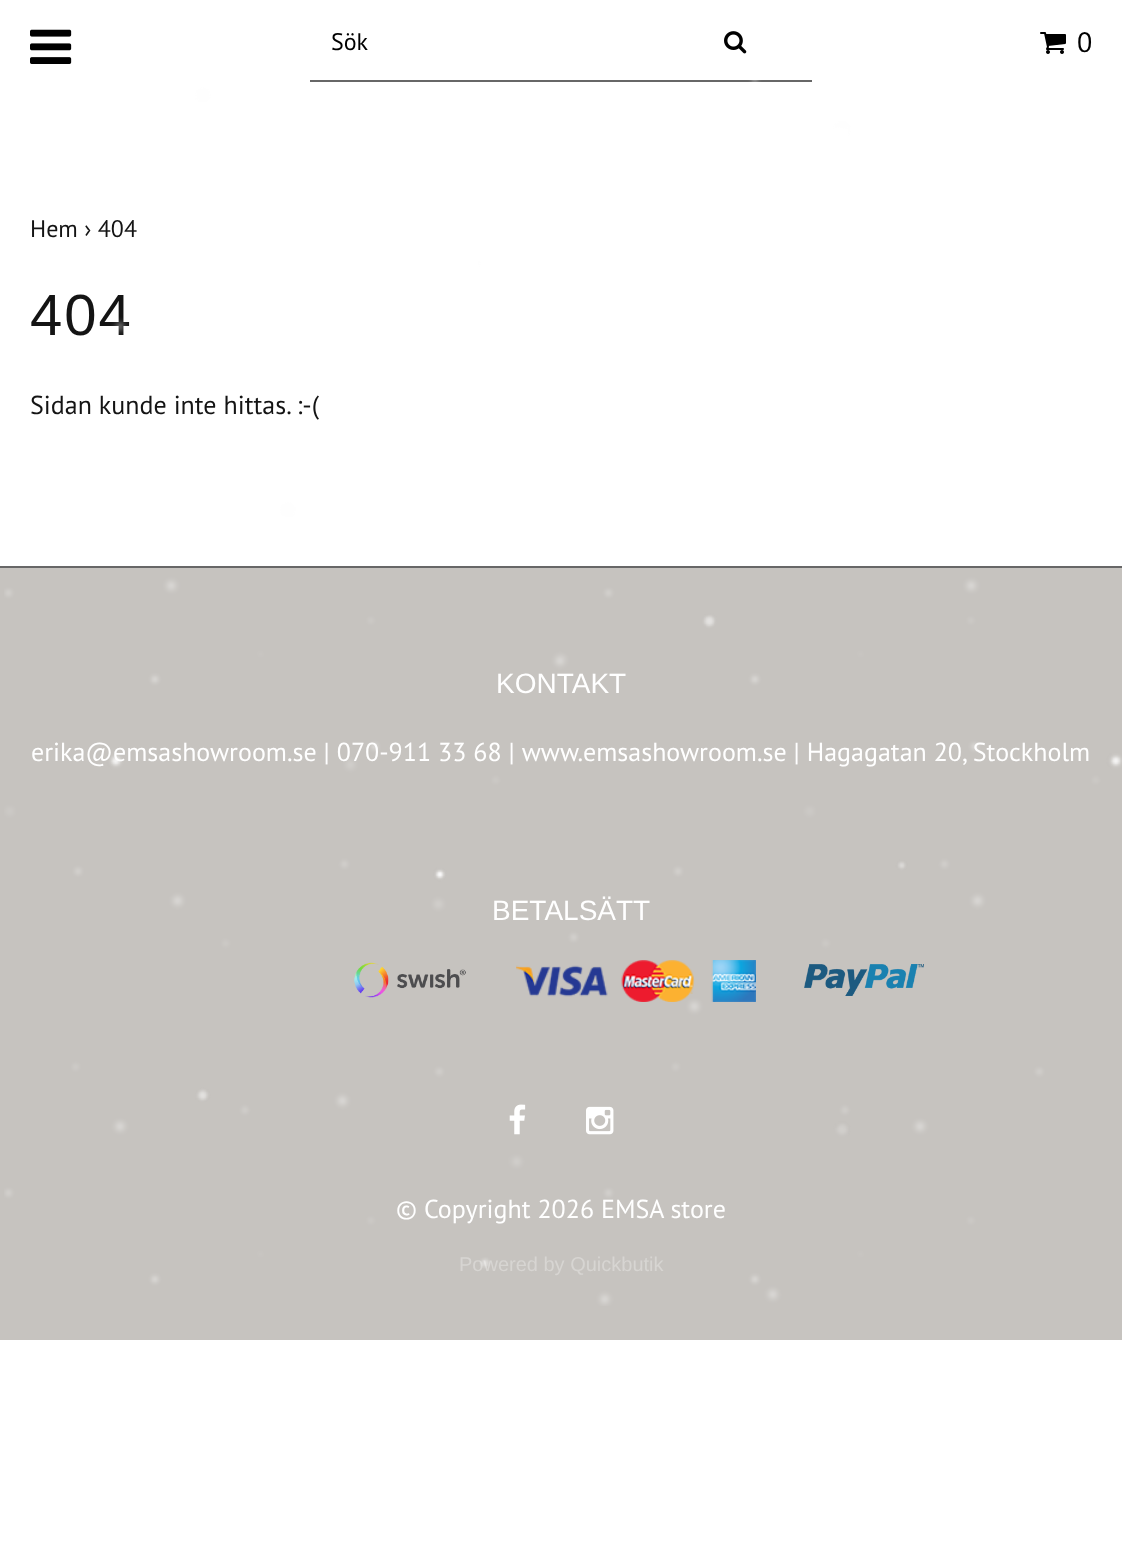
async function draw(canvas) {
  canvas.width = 1122
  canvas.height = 1568
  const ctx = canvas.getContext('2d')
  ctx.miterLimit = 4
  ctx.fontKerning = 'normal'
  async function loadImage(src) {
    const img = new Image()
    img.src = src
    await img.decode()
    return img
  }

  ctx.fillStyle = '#fff'
  ctx.fillRect(0, 0, 1122, 1568)
  ctx.drawImage(await loadImage('image0.png'), 30, 29, 42, 35)
  ctx.fillStyle = '#676767'
  ctx.fillRect(310, 80, 502, 2)
  ctx.font = '24px PT Sans'
  ctx.fillStyle = '#000'
  ctx.fillText('Sök', 331, 50)
  ctx.drawImage(await loadImage('image1.png'), 724, 31, 23, 23)
  ctx.drawImage(await loadImage('image2.png'), 1040, 32, 26, 22)
  ctx.font = '28px PT Sans'
  ctx.fillText('0', 1077, 52)
  ctx.font = '24px PT Sans'
  ctx.fillStyle = '#141414'
  ctx.fillText('Hem › 404', 30, 237)
  ctx.letterSpacing = '2px'
  ctx.font = '58px Liberation Sans'
  ctx.fillText('404', 30, 335)
  ctx.letterSpacing = '0px'
  ctx.font = '26px PT Sans'
  ctx.fillText('Sidan kunde inte hittas. :-(', 30, 414)
  ctx.fillStyle = '#c6c3bf'
  ctx.fillRect(0, 568, 1122, 772)
  ctx.fillStyle = '#676767'
  ctx.fillRect(0, 566, 1122, 2)
  ctx.font = '28px Liberation Sans'
  ctx.fillStyle = '#fff'
  ctx.fillText('KONTAKT', 496, 693)
  ctx.font = '26px PT Sans'
  ctx.fillText('erika@emsashowroom.se | 070-911 33 68 | www.emsashowroom.se | Hagagatan 20, Stockholm', 31, 761)
  ctx.font = '28px Liberation Sans'
  ctx.fillText('BETALSÄTT', 492, 920)
  ctx.drawImage(await loadImage('image3.png'), 354, 962, 112, 36)
  ctx.drawImage(await loadImage('image4.png'), 516, 960, 240, 42)
  ctx.drawImage(await loadImage('image5.png'), 804, 964, 120, 32)
  ctx.drawImage(await loadImage('image6.png'), 509, 1104, 17, 31)
  ctx.drawImage(await loadImage('image7.png'), 586, 1106, 28, 29)
  ctx.font = '26px PT Sans'
  ctx.fillText('© Copyright 2026 EMSA store', 396, 1218)
  ctx.font = '20px Liberation Sans'
  ctx.fillStyle = '#d7d5d2'
  ctx.fillText('Powered by Quickbutik', 459, 1271)
  ctx.drawImage(await loadImage('image8.png'), 4, 80, 1118, 1226)
}

draw(document.querySelector('canvas'))
